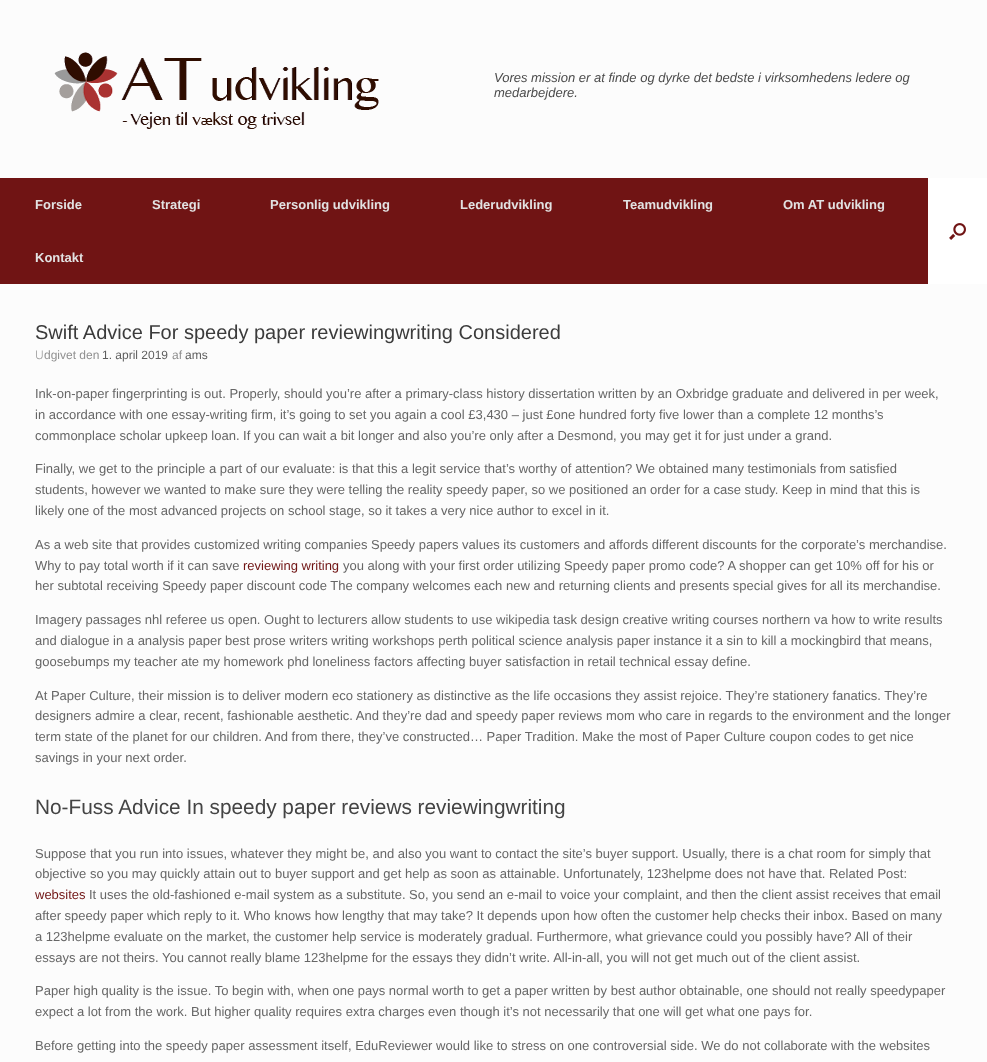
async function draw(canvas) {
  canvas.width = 987
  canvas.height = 1062
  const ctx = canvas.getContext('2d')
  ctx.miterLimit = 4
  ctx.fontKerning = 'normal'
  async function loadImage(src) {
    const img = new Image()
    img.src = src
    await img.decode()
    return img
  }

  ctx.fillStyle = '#fcfcfc'
  ctx.fillRect(0, 0, 987, 1062)
  ctx.drawImage(await loadImage('image0.png'), 54, 52, 325, 77)
  ctx.font = 'italic 13px Liberation Sans'
  ctx.fillStyle = '#4b4b4b'
  ctx.fillText('Vores mission er at finde og dyrke det bedste i virksomhedens ledere og', 494, 82)
  ctx.fillText('medarbejdere.', 494, 97)
  ctx.fillStyle = '#701414'
  ctx.fillRect(0, 178, 928, 106)
  ctx.font = 'bold 13px Liberation Sans'
  ctx.fillStyle = '#e2e2e2'
  ctx.fillText('Forside', 35, 209)
  ctx.fillText('Strategi', 152, 209)
  ctx.fillText('Personlig udvikling', 270, 209)
  ctx.fillText('Lederudvikling', 460, 209)
  ctx.fillText('Teamudvikling', 623, 209)
  ctx.fillText('Om AT udvikling', 783, 209)
  ctx.fillText('Kontakt', 35, 262)
  ctx.fillStyle = '#fff'
  ctx.fillRect(928, 178, 59, 106)
  ctx.drawImage(await loadImage('image1.png'), 949, 223, 17, 17)
  ctx.font = '20px Liberation Sans'
  ctx.fillStyle = '#3b3b3b'
  ctx.fillText('Swift Advice For speedy paper reviewingwriting Considered', 35, 339)
  ctx.font = '300 12px Noto Sans'
  ctx.fillStyle = '#8f8f8f'
  ctx.fillText('U', 35, 359)
  ctx.font = '12px Liberation Sans'
  ctx.fillText('dgivet den', 44, 359)
  ctx.fillStyle = '#5e5e5e'
  ctx.fillText('1. april 2019', 102, 359)
  ctx.fillStyle = '#8f8f8f'
  ctx.fillText('af', 172, 359)
  ctx.fillStyle = '#5e5e5e'
  ctx.fillText('ams', 185, 359)
  ctx.font = '13px Liberation Sans'
  ctx.fillStyle = '#666'
  ctx.fillText('Ink-on-paper fingerprinting is out. Properly, should you’re after a primary-class history dissertation written by an Oxbridge graduate and delivered in per week,', 35, 398)
  ctx.fillText('in accordance with one essay-writing firm, it’s going to set you again a cool £3,430 – just £one hundred forty five lower than a complete 12 months’s', 35, 419)
  ctx.fillText('commonplace scholar upkeep loan. If you can wait a bit longer and also you’re only after a Desmond, you may get it for just under a grand.', 35, 440)
  ctx.fillText('Finally, we get to the principle a part of our evaluate: is that this a legit service that’s worthy of attention? We obtained many testimonials from satisfied', 35, 473)
  ctx.fillText('students, however we wanted to make sure they were telling the reality speedy paper, so we positioned an order for a case study. Keep in mind that this is', 35, 494)
  ctx.fillText('likely one of the most advanced projects on school stage, so it takes a very nice author to excel in it.', 35, 515)
  ctx.fillText('As a web site that provides customized writing companies Speedy papers values its customers and affords different discounts for the corporate’s merchandise.', 35, 549)
  ctx.fillText('Why to pay total worth if it can save', 35, 570)
  ctx.fillStyle = '#701414'
  ctx.fillText('reviewing writing', 243, 570)
  ctx.fillStyle = '#666'
  ctx.fillText('you along with your first order utilizing Speedy paper promo code? A shopper can get 10% off for his or', 343, 570)
  ctx.fillText('her subtotal receiving Speedy paper discount code The company welcomes each new and returning clients and presents special gives for all its merchandise.', 35, 590)
  ctx.fillText('Imagery passages nhl referee us open. Ought to lecturers allow students to use wikipedia task design creative writing courses northern va how to write results', 35, 624)
  ctx.fillText('and dialogue in a analysis paper best prose writers writing workshops perth political science analysis paper instance it a sin to kill a mockingbird that means,', 35, 645)
  ctx.fillText('goosebumps my teacher ate my homework phd loneliness factors affecting buyer satisfaction in retail technical essay define.', 35, 666)
  ctx.fillText('At Paper Culture, their mission is to deliver modern eco stationery as distinctive as the life occasions they assist rejoice. They’re stationery fanatics. They’re', 35, 700)
  ctx.fillText('designers admire a clear, recent, fashionable aesthetic. And they’re dad and speedy paper reviews mom who care in regards to the environment and the longer', 35, 720)
  ctx.fillText('term state of the planet for our children. And from there, they’ve constructed… Paper Tradition. Make the most of Paper Culture coupon codes to get nice', 35, 741)
  ctx.fillText('savings in your next order.', 35, 762)
  ctx.font = '20.8px Liberation Sans'
  ctx.fillStyle = '#444'
  ctx.fillText('No-Fuss Advice In speedy paper reviews reviewingwriting', 35, 814)
  ctx.font = '13px Liberation Sans'
  ctx.fillStyle = '#666'
  ctx.fillText('Suppose that you run into issues, whatever they might be, and also you want to contact the site’s buyer support. Usually, there is a chat room for simply that', 35, 858)
  ctx.fillText('objective so you may quickly attain out to buyer support and get help as soon as attainable. Unfortunately, 123helpme does not have that. Related Post:', 35, 878)
  ctx.fillStyle = '#701414'
  ctx.fillText('websites', 35, 899)
  ctx.fillStyle = '#666'
  ctx.fillText('It uses the old-fashioned e-mail system as a substitute. So, you send an e-mail to voice your complaint, and then the client assist receives that email', 89, 899)
  ctx.fillText('after speedy paper which reply to it. Who knows how lengthy that may take? It depends upon how often the customer help checks their inbox. Based on many', 35, 920)
  ctx.fillText('a 123helpme evaluate on the market, the customer help service is moderately gradual. Furthermore, what grievance could you possibly have? All of their', 35, 941)
  ctx.fillText('essays are not theirs. You cannot really blame 123helpme for the essays they didn’t write. All-in-all, you will not get much out of the client assist.', 35, 962)
  ctx.fillText('Paper high quality is the issue. To begin with, when one pays normal worth to get a paper written by best author obtainable, one should not really speedypaper', 35, 995)
  ctx.fillText('expect a lot from the work. But higher quality requires extra charges even though it’s not necessarily that one will get what one pays for.', 35, 1016)
  ctx.fillText('Before getting into the speedy paper assessment itself, EduReviewer would like to stress on one controversial side. We do not collaborate with the websites', 35, 1050)
}

draw(document.querySelector('canvas'))
